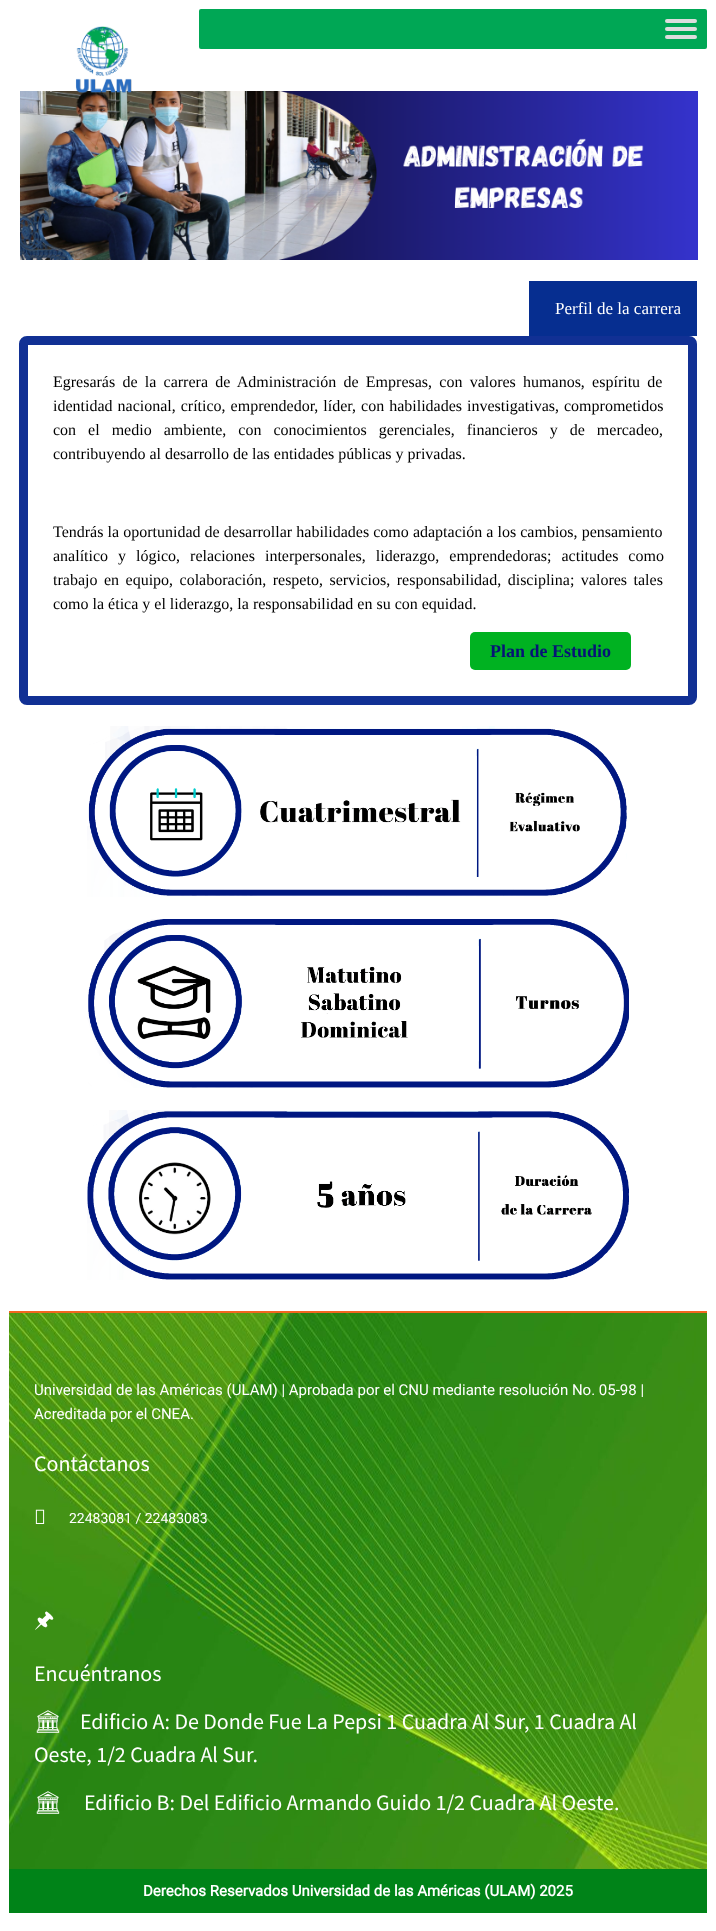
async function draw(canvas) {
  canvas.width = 716
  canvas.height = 1931
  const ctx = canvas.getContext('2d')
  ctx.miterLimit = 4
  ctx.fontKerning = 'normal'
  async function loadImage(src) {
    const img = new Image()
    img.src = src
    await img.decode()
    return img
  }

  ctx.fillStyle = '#fff'
  ctx.fillRect(0, 0, 716, 1931)
  ctx.drawImage(await loadImage('image1.png'), 20, 91, 678, 169)
  ctx.drawImage(await loadImage('image0.png'), 75, 26, 57, 68)
  ctx.fillStyle = '#00a755'
  ctx.beginPath()
  ctx.roundRect(199, 9, 508, 40, 2)
  ctx.fill()
  ctx.fillStyle = '#ddd'
  ctx.beginPath()
  ctx.roundRect(665, 19, 32, 4, 2)
  ctx.fill()
  ctx.beginPath()
  ctx.roundRect(665, 27, 32, 4, 2)
  ctx.fill()
  ctx.beginPath()
  ctx.roundRect(665, 35, 32, 4, 2)
  ctx.fill()
  ctx.fillStyle = '#062e90'
  ctx.fillRect(529, 281, 168, 55)
  ctx.font = '17px Liberation Serif'
  ctx.fillStyle = '#fff'
  ctx.fillText('Perfil de la carrera', 555, 314)
  ctx.beginPath()
  ctx.roundRect(23.5, 340.5, 669, 360, 3.5)
  ctx.strokeStyle = '#113094'
  ctx.lineWidth = 9
  ctx.stroke()
  ctx.wordSpacing = '3.25px'
  ctx.font = '16px Liberation Serif'
  ctx.fillStyle = '#000'
  ctx.fillText('Egresarás de la carrera de Administración de Empresas, con valores humanos, espíritu de', 53, 387)
  ctx.wordSpacing = '1px'
  ctx.fillText('identidad nacional, crítico, emprendedor, líder, con habilidades investigativas, comprometidos', 53, 411)
  ctx.wordSpacing = '8px'
  ctx.fillText('con el medio ambiente, con conocimientos gerenciales, financieros y de mercadeo,', 53, 435)
  ctx.wordSpacing = '0px'
  ctx.fillText('contribuyendo al desarrollo de las entidades públicas y privadas.', 53, 459)
  ctx.wordSpacing = '0.1px'
  ctx.fillText('Tendrás la oportunidad de desarrollar habilidades como adaptación a los cambios, pensamiento', 53, 537)
  ctx.wordSpacing = '6px'
  ctx.fillText('analítico y lógico, relaciones interpersonales, liderazgo, emprendedoras; actitudes como', 53, 561)
  ctx.wordSpacing = '2.5px'
  ctx.fillText('trabajo en equipo, colaboración, respeto, servicios, responsabilidad, disciplina; valores tales', 53, 585)
  ctx.wordSpacing = '0px'
  ctx.fillText('como la ética y el liderazgo, la responsabilidad en su con equidad.', 53, 609)
  ctx.fillStyle = '#00b221'
  ctx.beginPath()
  ctx.roundRect(470, 632, 161, 38, 5)
  ctx.fill()
  ctx.font = 'bold 18px Liberation Serif'
  ctx.fillStyle = '#061377'
  ctx.fillText('Plan de Estudio', 490, 657)
  ctx.drawImage(await loadImage('image2.png'), 87, 726, 540, 171)
  ctx.drawImage(await loadImage('image3.png'), 87, 919, 542, 169)
  ctx.drawImage(await loadImage('image4.png'), 87, 1110, 542, 170)
  ctx.drawImage(await loadImage('image5.png'), 9, 1313, 698, 556)
  ctx.fillStyle = '#f26520'
  ctx.fillRect(9, 1311, 698, 2)
  ctx.font = '15px Roboto'
  ctx.fillStyle = '#fff'
  ctx.fillText('Universidad de las Américas (ULAM) | Aprobada por el CNU mediante resolución No. 05-98 |', 34, 1395)
  ctx.fillText('Acreditada por el CNEA.', 34, 1419)
  ctx.font = '22px Source Sans Pro'
  ctx.fillText('Contáctanos', 34, 1471)
  ctx.drawImage(await loadImage('image6.png'), 35, 1509, 10, 15)
  ctx.font = '14px Roboto'
  ctx.fillText('22483081 / 22483083', 69, 1523)
  ctx.font = '22px "Noto Sans Symbols 2"'
  ctx.fillText('🖈', 34, 1627)
  ctx.font = '22px Source Sans Pro'
  ctx.fillText('Encuéntranos', 34, 1681)
  ctx.font = '22px Noto Emoji'
  ctx.fillText('🏛', 34, 1729)
  ctx.font = '22px Source Sans Pro'
  ctx.fillText('Edificio A: De Donde Fue La Pepsi 1 Cuadra Al Sur, 1 Cuadra Al', 80, 1729)
  ctx.fillText('Oeste, 1/2 Cuadra Al Sur.', 34, 1762)
  ctx.font = '22px Noto Emoji'
  ctx.fillText('🏛', 34, 1810)
  ctx.font = '22px Source Sans Pro'
  ctx.fillText('Edificio B: Del Edificio Armando Guido 1/2 Cuadra Al Oeste.', 84, 1810)
  ctx.fillStyle = '#008318'
  ctx.fillRect(9, 1869, 698, 44)
  ctx.font = 'bold 15px Roboto'
  ctx.fillStyle = '#fff'
  ctx.fillText('Derechos Reservados Universidad de las Américas (ULAM) 2025', 143, 1896)
}

draw(document.querySelector('canvas'))
